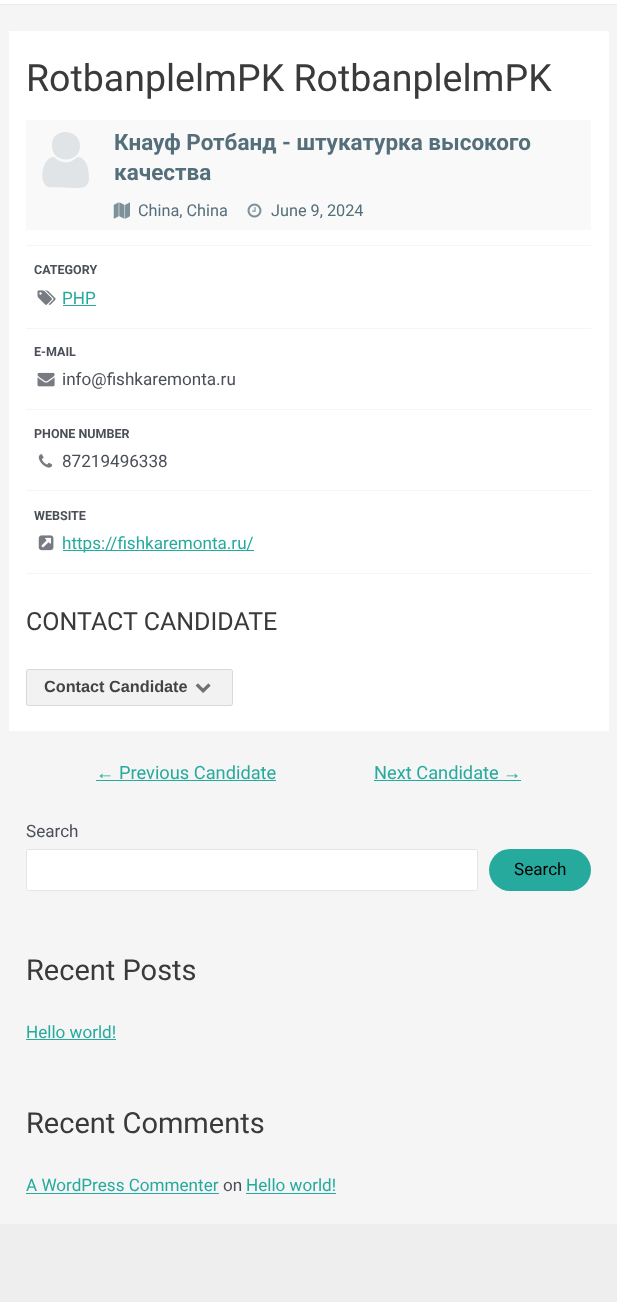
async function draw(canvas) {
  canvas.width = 617
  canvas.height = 1302
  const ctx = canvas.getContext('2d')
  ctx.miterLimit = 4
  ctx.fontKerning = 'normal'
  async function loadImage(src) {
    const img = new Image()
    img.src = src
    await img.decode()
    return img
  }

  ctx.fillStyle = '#f5f5f5'
  ctx.fillRect(0, 0, 617, 1302)
  ctx.fillStyle = '#fff'
  ctx.fillRect(0, 0, 617, 4)
  ctx.fillStyle = '#eaeaea'
  ctx.fillRect(0, 4, 617, 1)
  ctx.fillStyle = '#fff'
  ctx.fillRect(9, 31, 600, 700)
  ctx.font = '37.5px Roboto'
  ctx.fillStyle = '#3a3a3a'
  ctx.fillText('RotbanplelmPK RotbanplelmPK', 26, 91)
  ctx.fillStyle = '#f9f9f9'
  ctx.fillRect(26, 120, 565, 110)
  ctx.fillStyle = '#e0e4e6'
  ctx.beginPath()
  ctx.moveTo(89, 178)
  ctx.bezierCurveTo(89, 187, 83, 188, 76, 188)
  ctx.lineTo(48, 187)
  ctx.bezierCurveTo(38, 183, 42, 157, 54, 157)
  ctx.bezierCurveTo(61, 164, 71, 164, 77, 157)
  ctx.bezierCurveTo(87, 157, 89, 170, 89, 178)
  ctx.closePath()
  ctx.moveTo(80, 146)
  ctx.bezierCurveTo(80, 164, 52, 164, 52, 146)
  ctx.bezierCurveTo(51, 127, 80, 128, 80, 146)
  ctx.closePath()
  ctx.fill()
  ctx.font = 'bold 22.5px Roboto'
  ctx.fillStyle = '#546e7a'
  ctx.fillText('Кнауф Ротбанд - штукатурка высокого', 114, 150)
  ctx.fillText('качества', 114, 180)
  ctx.drawImage(await loadImage('image0.png'), 113, 202, 17, 17)
  ctx.font = '16.25px Roboto'
  ctx.fillText('China, China', 138, 216)
  ctx.drawImage(await loadImage('image1.png'), 247, 203, 15, 15)
  ctx.fillText('June 9, 2024', 271, 216)
  ctx.fillStyle = '#f5f5f5'
  ctx.fillRect(26, 245, 565, 1)
  ctx.fillRect(26, 328, 565, 1)
  ctx.font = 'bold 12.5px Roboto'
  ctx.fillStyle = '#4b4f58'
  ctx.fillText('CATEGORY', 34, 274)
  ctx.drawImage(await loadImage('image2.png'), 37, 290, 19, 15)
  ctx.font = '17.1px Roboto'
  ctx.fillStyle = '#26aa9d'
  ctx.fillText('PHP', 62, 304)
  ctx.fillRect(63, 305, 33, 1)
  ctx.fillStyle = '#f5f5f5'
  ctx.fillRect(26, 409, 565, 1)
  ctx.font = 'bold 12.5px Roboto'
  ctx.fillStyle = '#4b4f58'
  ctx.fillText('E-MAIL', 34, 356)
  ctx.drawImage(await loadImage('image3.png'), 37, 372, 18, 15)
  ctx.font = '17.1px Roboto'
  ctx.fillText('info@fishkaremonta.ru', 62, 385)
  ctx.fillStyle = '#f5f5f5'
  ctx.fillRect(26, 490, 565, 1)
  ctx.font = 'bold 12.5px Roboto'
  ctx.fillStyle = '#4b4f58'
  ctx.fillText('PHONE NUMBER', 34, 438)
  ctx.drawImage(await loadImage('image4.png'), 38, 454, 15, 14)
  ctx.font = '17.1px Roboto'
  ctx.fillText('87219496338', 62, 467)
  ctx.fillStyle = '#f5f5f5'
  ctx.fillRect(26, 573, 565, 1)
  ctx.font = 'bold 12.5px Roboto'
  ctx.fillStyle = '#4b4f58'
  ctx.fillText('WEBSITE', 34, 520)
  ctx.drawImage(await loadImage('image5.png'), 38, 535, 16, 16)
  ctx.fillStyle = '#26aa9d'
  ctx.fillRect(63, 550, 191, 1)
  ctx.font = '17.1px Roboto'
  ctx.fillText('https://fishkaremonta.ru/', 62, 549)
  ctx.font = '25px Roboto'
  ctx.fillStyle = '#3a3a3a'
  ctx.fillText('CONTACT CANDIDATE', 26, 630)
  ctx.fillStyle = '#f2f2f2'
  ctx.beginPath()
  ctx.roundRect(26, 669, 207, 37, 2.5)
  ctx.fill()
  ctx.beginPath()
  ctx.roundRect(26.5, 669.5, 206, 36, 2)
  ctx.strokeStyle = '#0000001a'
  ctx.stroke()
  ctx.font = 'bold 16.25px Liberation Sans'
  ctx.fillStyle = '#444'
  ctx.fillText('Contact Candidate', 44, 692)
  ctx.drawImage(await loadImage('image6.png'), 195, 683, 16, 10)
  ctx.font = '18.25px Liberation Sans'
  ctx.fillStyle = '#26aa9d'
  ctx.fillText('←', 96, 779)
  ctx.fillRect(96, 780, 180, 1)
  ctx.font = '18.25px Roboto'
  ctx.fillText('Previous Candidate', 119, 779)
  ctx.fillText('Next Candidate', 374, 779)
  ctx.fillRect(374, 780, 147, 1)
  ctx.font = '18.25px Liberation Sans'
  ctx.fillText('→', 503, 779)
  ctx.font = '17.1px Roboto'
  ctx.fillStyle = '#4b4f58'
  ctx.fillText('Search', 26, 837)
  ctx.fillStyle = '#fff'
  ctx.beginPath()
  ctx.roundRect(26.5, 849.5, 451, 41, 2)
  ctx.fill()
  ctx.strokeStyle = '#e5e5e5'
  ctx.stroke()
  ctx.fillStyle = '#26aa9d'
  ctx.beginPath()
  ctx.roundRect(489, 849, 102, 42, 21)
  ctx.fill()
  ctx.fillStyle = '#000'
  ctx.fillText('Search', 514, 875)
  ctx.font = '29px Roboto'
  ctx.fillStyle = '#3a3a3a'
  ctx.fillText('Recent Posts', 26, 980)
  ctx.font = '17.1px Roboto'
  ctx.fillStyle = '#26aa9d'
  ctx.fillText('Hello world!', 26, 1038)
  ctx.fillRect(26, 1039, 90, 1)
  ctx.font = '29px Roboto'
  ctx.fillStyle = '#3a3a3a'
  ctx.fillText('Recent Comments', 26, 1133)
  ctx.font = '17.1px Roboto'
  ctx.fillStyle = '#26aa9d'
  ctx.fillText('A WordPress Commenter', 26, 1191)
  ctx.fillRect(26, 1193, 193, 1)
  ctx.fillStyle = '#4b4f58'
  ctx.fillText('on', 223, 1191)
  ctx.fillStyle = '#26aa9d'
  ctx.fillText('Hello world!', 246, 1191)
  ctx.fillRect(246, 1193, 90, 1)
  ctx.fillStyle = '#eee'
  ctx.fillRect(0, 1224, 617, 78)
}

draw(document.querySelector('canvas'))
